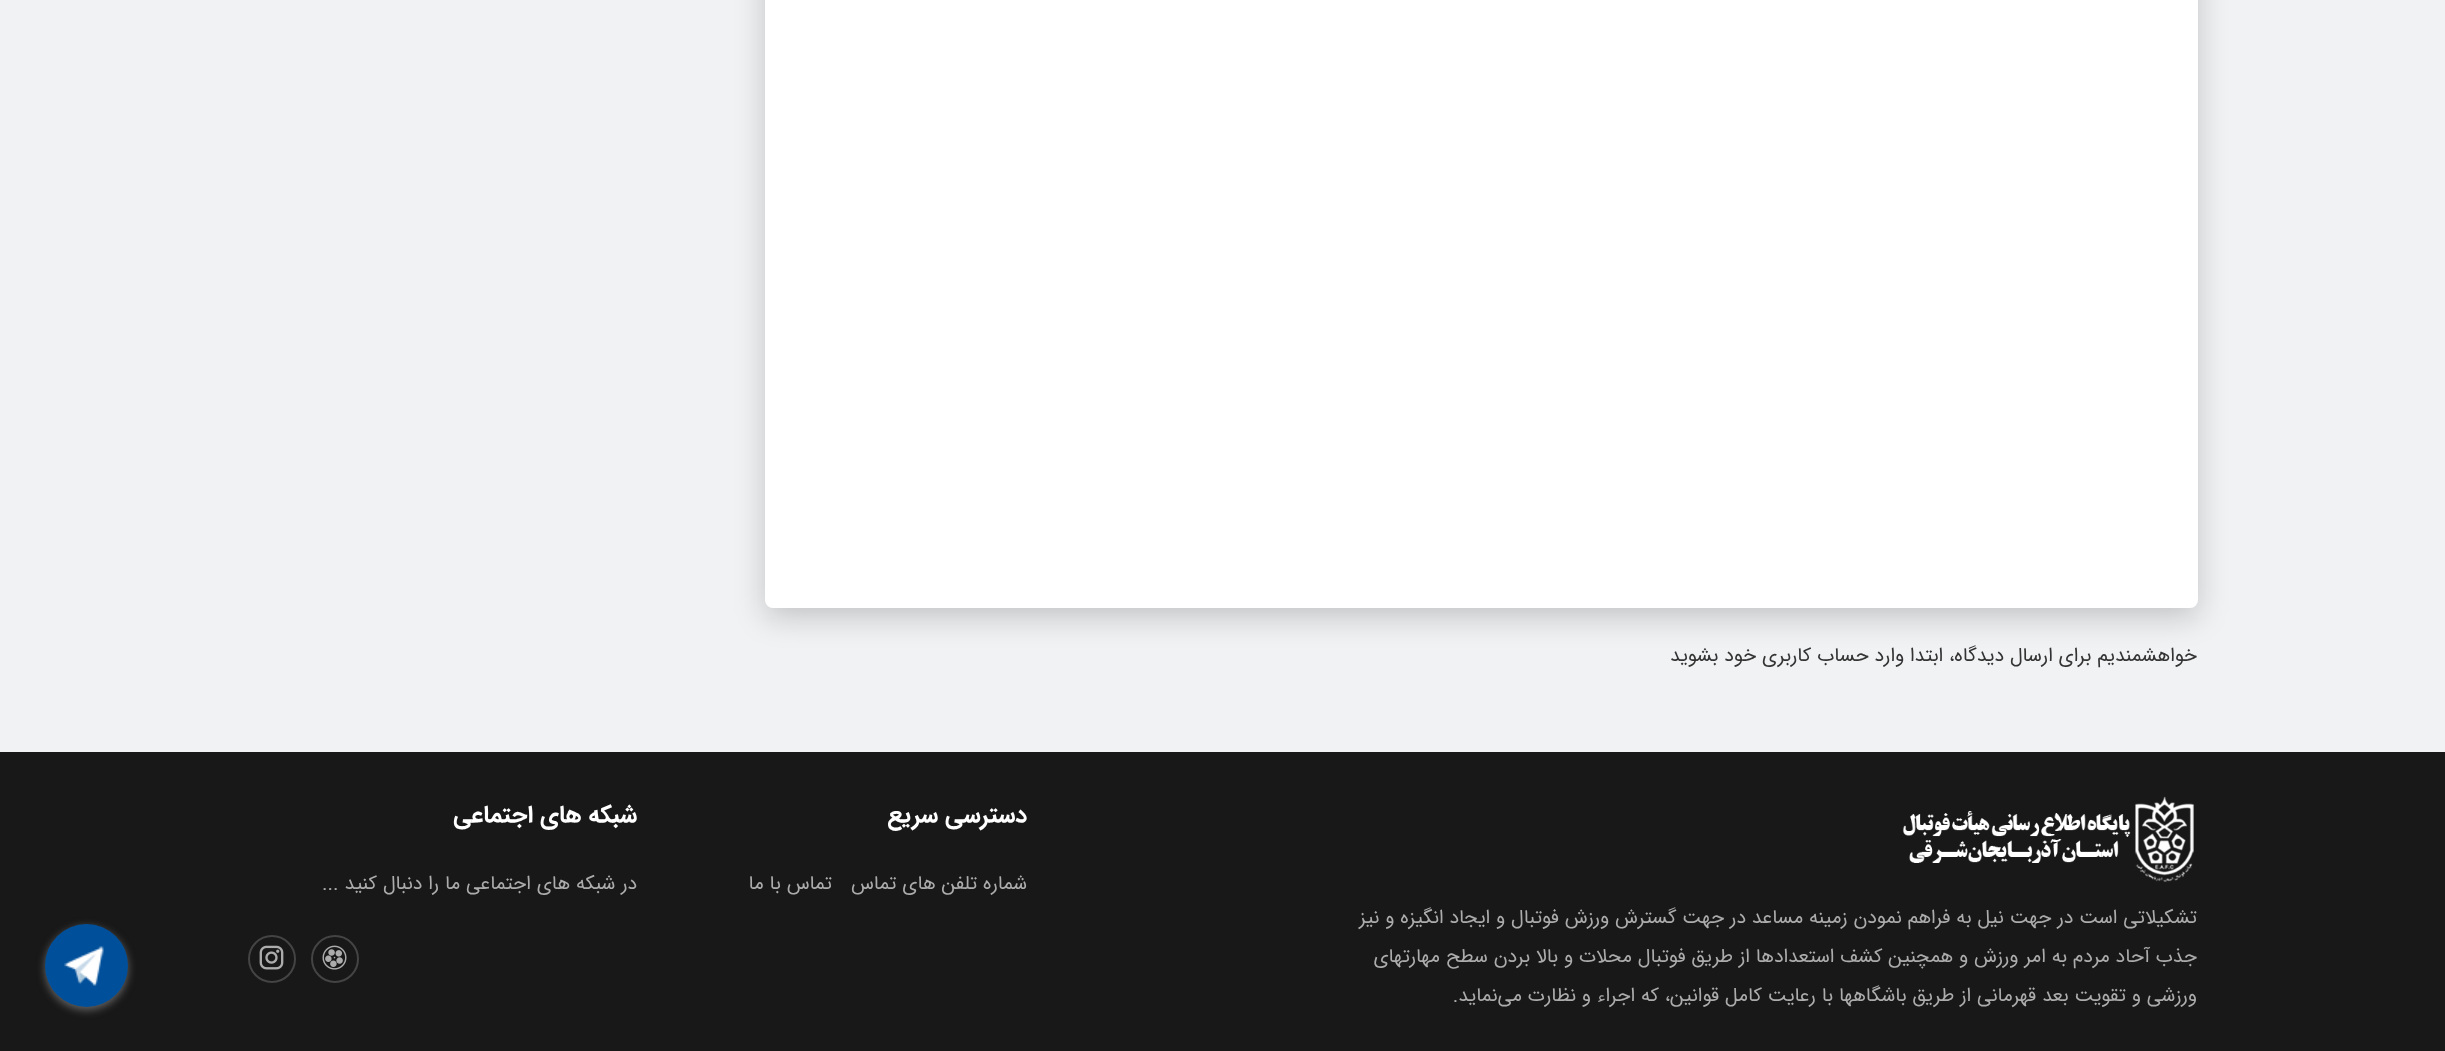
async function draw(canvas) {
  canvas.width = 2445
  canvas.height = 1051
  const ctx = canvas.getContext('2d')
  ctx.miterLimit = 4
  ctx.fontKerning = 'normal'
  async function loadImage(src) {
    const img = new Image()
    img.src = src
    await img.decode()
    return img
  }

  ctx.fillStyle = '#f1f2f4'
  ctx.fillRect(0, 0, 2445, 1051)
  ctx.fillStyle = '#0b0b0b33'
  ctx.filter = 'blur(15px)'
  ctx.beginPath()
  ctx.roundRect(765, -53, 1433, 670, 8)
  ctx.fill()
  ctx.filter = 'none'
  ctx.fillStyle = '#fff'
  ctx.beginPath()
  ctx.roundRect(765, -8, 1433, 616, 8)
  ctx.fill()
  ctx.direction = 'rtl'
  ctx.font = '19.5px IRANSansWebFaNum'
  ctx.fillStyle = '#333'
  ctx.fillText('خواهشمندیم برای ارسال دیدگاه، ابتدا وارد حساب كاربری خود بشويد', 2197, 661)
  ctx.fillStyle = '#181818'
  ctx.fillRect(0, 752, 2445, 299)
  ctx.font = 'bold 24px IRANSansWebFaNum'
  ctx.fillStyle = '#fff'
  ctx.fillText('دسترسی سریع', 1027, 822)
  ctx.font = '19.5px IRANSansWebFaNum'
  ctx.fillStyle = '#acacac'
  ctx.fillText('شماره تلفن های تماس', 1027, 889)
  ctx.fillText('تماس با ما', 832, 889)
  ctx.font = 'bold 24px IRANSansWebFaNum'
  ctx.fillStyle = '#fff'
  ctx.fillText('شبکه های اجتماعی', 637, 822)
  ctx.font = '19.5px IRANSansWebFaNum'
  ctx.fillStyle = '#acacac'
  ctx.fillText('در شبکه های اجتماعی ما را دنبال کنید ...', 637, 889)
  ctx.beginPath()
  ctx.arc(335, 959, 23, 0, 2 * Math.PI)
  ctx.strokeStyle = '#444'
  ctx.lineWidth = 2
  ctx.stroke()
  ctx.drawImage(await loadImage('image0.png'), 322, 945, 25, 25)
  ctx.beginPath()
  ctx.arc(272, 959, 23, 0, 2 * Math.PI)
  ctx.stroke()
  ctx.drawImage(await loadImage('image1.png'), 259, 945, 25, 25)
  ctx.drawImage(await loadImage('image2.png'), 1902, 796, 292, 86)
  ctx.fillText('تشکیلاتی است در جهت نیل به فراهم نمودن زمینه مساعد در جهت گسترش ورزش فوتبال و ایجاد انگیزه و نیز', 2197, 923)
  ctx.fillText('جذب آحاد مردم به امر ورزش و همچنین کشف استعدادها از طریق فوتبال محلات و بالا بردن سطح مهارتهای', 2197, 962)
  ctx.fillText('ورزشی و تقویت بعد قهرمانی از طریق باشگاهها با رعایت کامل قوانین، که اجراء و نظارت می‌نماید.', 2197, 1001)
  ctx.fillStyle = '#666'
  ctx.filter = 'blur(4px)'
  ctx.beginPath()
  ctx.roundRect(45, 927, 83, 83, 41.5)
  ctx.fill()
  ctx.filter = 'none'
  ctx.fillStyle = '#004f9a'
  ctx.beginPath()
  ctx.arc(86.5, 965.5, 41.5, 0, 2 * Math.PI)
  ctx.fill()
  ctx.drawImage(await loadImage('image3.png'), 64, 946, 40, 40)
}

draw(document.querySelector('canvas'))
